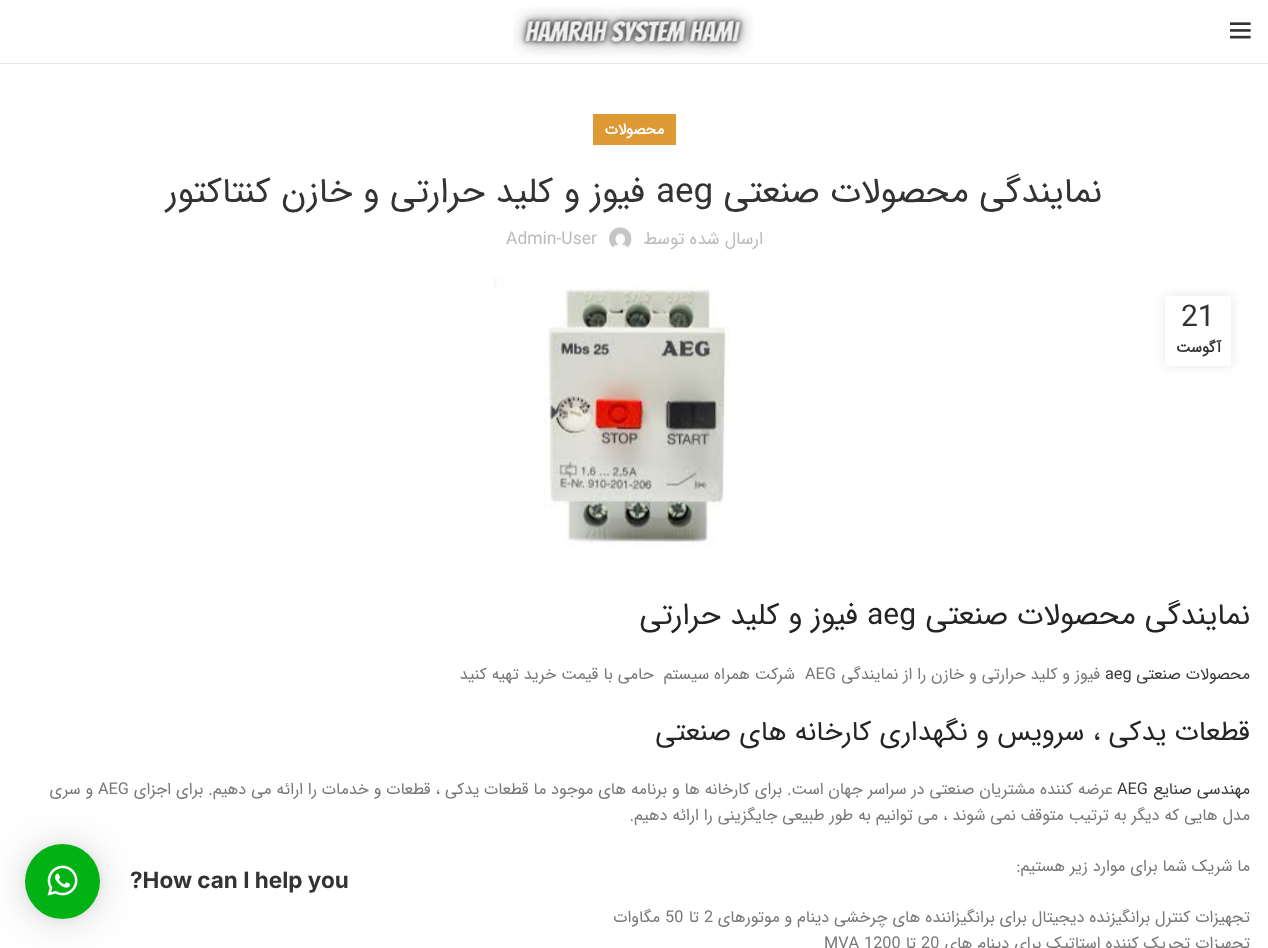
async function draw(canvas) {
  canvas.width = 1268
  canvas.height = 948
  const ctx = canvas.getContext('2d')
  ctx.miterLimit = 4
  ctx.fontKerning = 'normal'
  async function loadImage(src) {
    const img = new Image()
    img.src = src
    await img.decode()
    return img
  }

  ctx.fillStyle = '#fff'
  ctx.fillRect(0, 0, 1268, 948)
  ctx.fillStyle = '#e8e8e8'
  ctx.fillRect(0, 63, 1268, 1)
  ctx.drawImage(await loadImage('image0.png'), 1230, 22, 21, 17)
  ctx.drawImage(await loadImage('image1.png'), 513, 7, 241, 49)
  ctx.fillStyle = '#d93'
  ctx.fillRect(593, 114, 83, 31)
  ctx.direction = 'rtl'
  ctx.font = 'bold 15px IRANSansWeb'
  ctx.fillStyle = '#fff'
  ctx.fillText('محصولات', 664, 134)
  ctx.font = '35px IRANSansWeb'
  ctx.fillStyle = '#333'
  ctx.fillText('نمایندگی محصولات صنعتی', 1102, 202)
  ctx.direction = 'ltr'
  ctx.fillText('aeg', 656, 202)
  ctx.direction = 'rtl'
  ctx.fillText('فیوز و کلید حرارتی و خازن کنتاکتور', 645, 202)
  ctx.font = '17.5px IRANSansWeb'
  ctx.fillStyle = '#bbb'
  ctx.fillText('ارسال شده توسط', 763, 244)
  ctx.drawImage(await loadImage('image2.png'), 609, 227, 23, 21)
  ctx.direction = 'ltr'
  ctx.fillText('Admin-User', 506, 244)
  ctx.fillStyle = '#0000001a'
  ctx.filter = 'blur(5.5px)'
  ctx.beginPath()
  ctx.rect(1165, 296, 66, 70)
  ctx.fill()
  ctx.filter = 'none'
  ctx.fillStyle = '#fff'
  ctx.fillRect(1165, 296, 66, 70)
  ctx.font = '30px IRANSansWeb'
  ctx.fillStyle = '#333'
  ctx.fillText('21', 1181, 326)
  ctx.direction = 'rtl'
  ctx.font = 'bold 15px IRANSansWeb'
  ctx.fillText('آگوست', 1221, 352)
  ctx.drawImage(await loadImage('image3.png'), 494, 278, 236, 269)
  ctx.font = '30px IRANSansWeb'
  ctx.fillStyle = '#242424'
  ctx.fillText('نمایندگی محصولات صنعتی', 1250, 624)
  ctx.direction = 'ltr'
  ctx.fillText('aeg', 867, 624)
  ctx.direction = 'rtl'
  ctx.fillText('فیوز و کلید حرارتی', 858, 624)
  ctx.font = '16.25px IRANSansWeb'
  ctx.fillStyle = '#3a3a3a'
  ctx.fillText('محصولات صنعتی', 1250, 679)
  ctx.direction = 'ltr'
  ctx.fillText('aeg', 1105, 679)
  ctx.direction = 'rtl'
  ctx.fillStyle = '#777'
  ctx.fillText('فیوز و کلید حرارتی و خازن را از نمایندگی', 1100, 679)
  ctx.direction = 'ltr'
  ctx.fillText('AEG', 805, 679)
  ctx.direction = 'rtl'
  ctx.fillText('شرکت همراه سیستم  حامی با قیمت خرید تهیه کنید', 795, 679)
  ctx.font = '27.5px IRANSansWeb'
  ctx.fillStyle = '#242424'
  ctx.fillText('قطعات یدکی ، سرویس و نگهداری کارخانه های صنعتی', 1250, 740)
  ctx.font = '16.25px IRANSansWeb'
  ctx.fillStyle = '#3a3a3a'
  ctx.fillText('مهندسی صنایع', 1250, 794)
  ctx.direction = 'ltr'
  ctx.fillText('AEG', 1117, 794)
  ctx.direction = 'rtl'
  ctx.fillStyle = '#777'
  ctx.fillText('عرضه کننده مشتریان صنعتی در سراسر جهان است. برای کارخانه ها و برنامه های موجود ما قطعات یدکی ، قطعات و خدمات را ارائه می دهیم. برای اجزای', 1113, 794)
  ctx.direction = 'ltr'
  ctx.fillText('AEG', 98, 794)
  ctx.direction = 'rtl'
  ctx.fillText('و سری', 93, 794)
  ctx.fillText('مدل هایی که دیگر به ترتیب متوقف نمی شوند ، می توانیم به طور طبیعی جایگزینی را ارائه دهیم.', 1250, 820)
  ctx.fillText('ما شریک شما برای موارد زیر هستیم:', 1250, 871)
  ctx.fillText('تجهیزات کنترل برانگیزنده دیجیتال برای برانگیزاننده های چرخشی دینام و موتورهای', 1250, 922)
  ctx.direction = 'ltr'
  ctx.fillText('2', 704, 922)
  ctx.direction = 'rtl'
  ctx.fillText('تا', 699, 922)
  ctx.direction = 'ltr'
  ctx.fillText('50', 665, 922)
  ctx.direction = 'rtl'
  ctx.fillText('مگاوات', 660, 922)
  ctx.fillText('تجهیزات تحریک کننده استاتیک برای دینام های', 1250, 948)
  ctx.direction = 'ltr'
  ctx.fillText('20', 921, 948)
  ctx.direction = 'rtl'
  ctx.fillText('تا', 916, 948)
  ctx.direction = 'ltr'
  ctx.fillText('MVA 1200', 824, 948)
  ctx.fillStyle = '#00000029'
  ctx.filter = 'blur(20px)'
  ctx.beginPath()
  ctx.roundRect(25, 846, 75, 75, 37.5)
  ctx.fill()
  ctx.filter = 'none'
  ctx.fillStyle = '#0000000f'
  ctx.filter = 'blur(4px)'
  ctx.beginPath()
  ctx.roundRect(25, 845, 75, 75, 37.5)
  ctx.fill()
  ctx.filter = 'none'
  ctx.fillStyle = '#00b214'
  ctx.beginPath()
  ctx.arc(62.5, 881.5, 37.5, 0, 2 * Math.PI)
  ctx.fill()
  ctx.font = 'bold 22.5px Inter'
  ctx.fillStyle = '#333'
  ctx.fillText('?How can I help you', 130, 888)
  ctx.drawImage(await loadImage('image4.png'), 47, 865, 31, 31)
}

draw(document.querySelector('canvas'))
